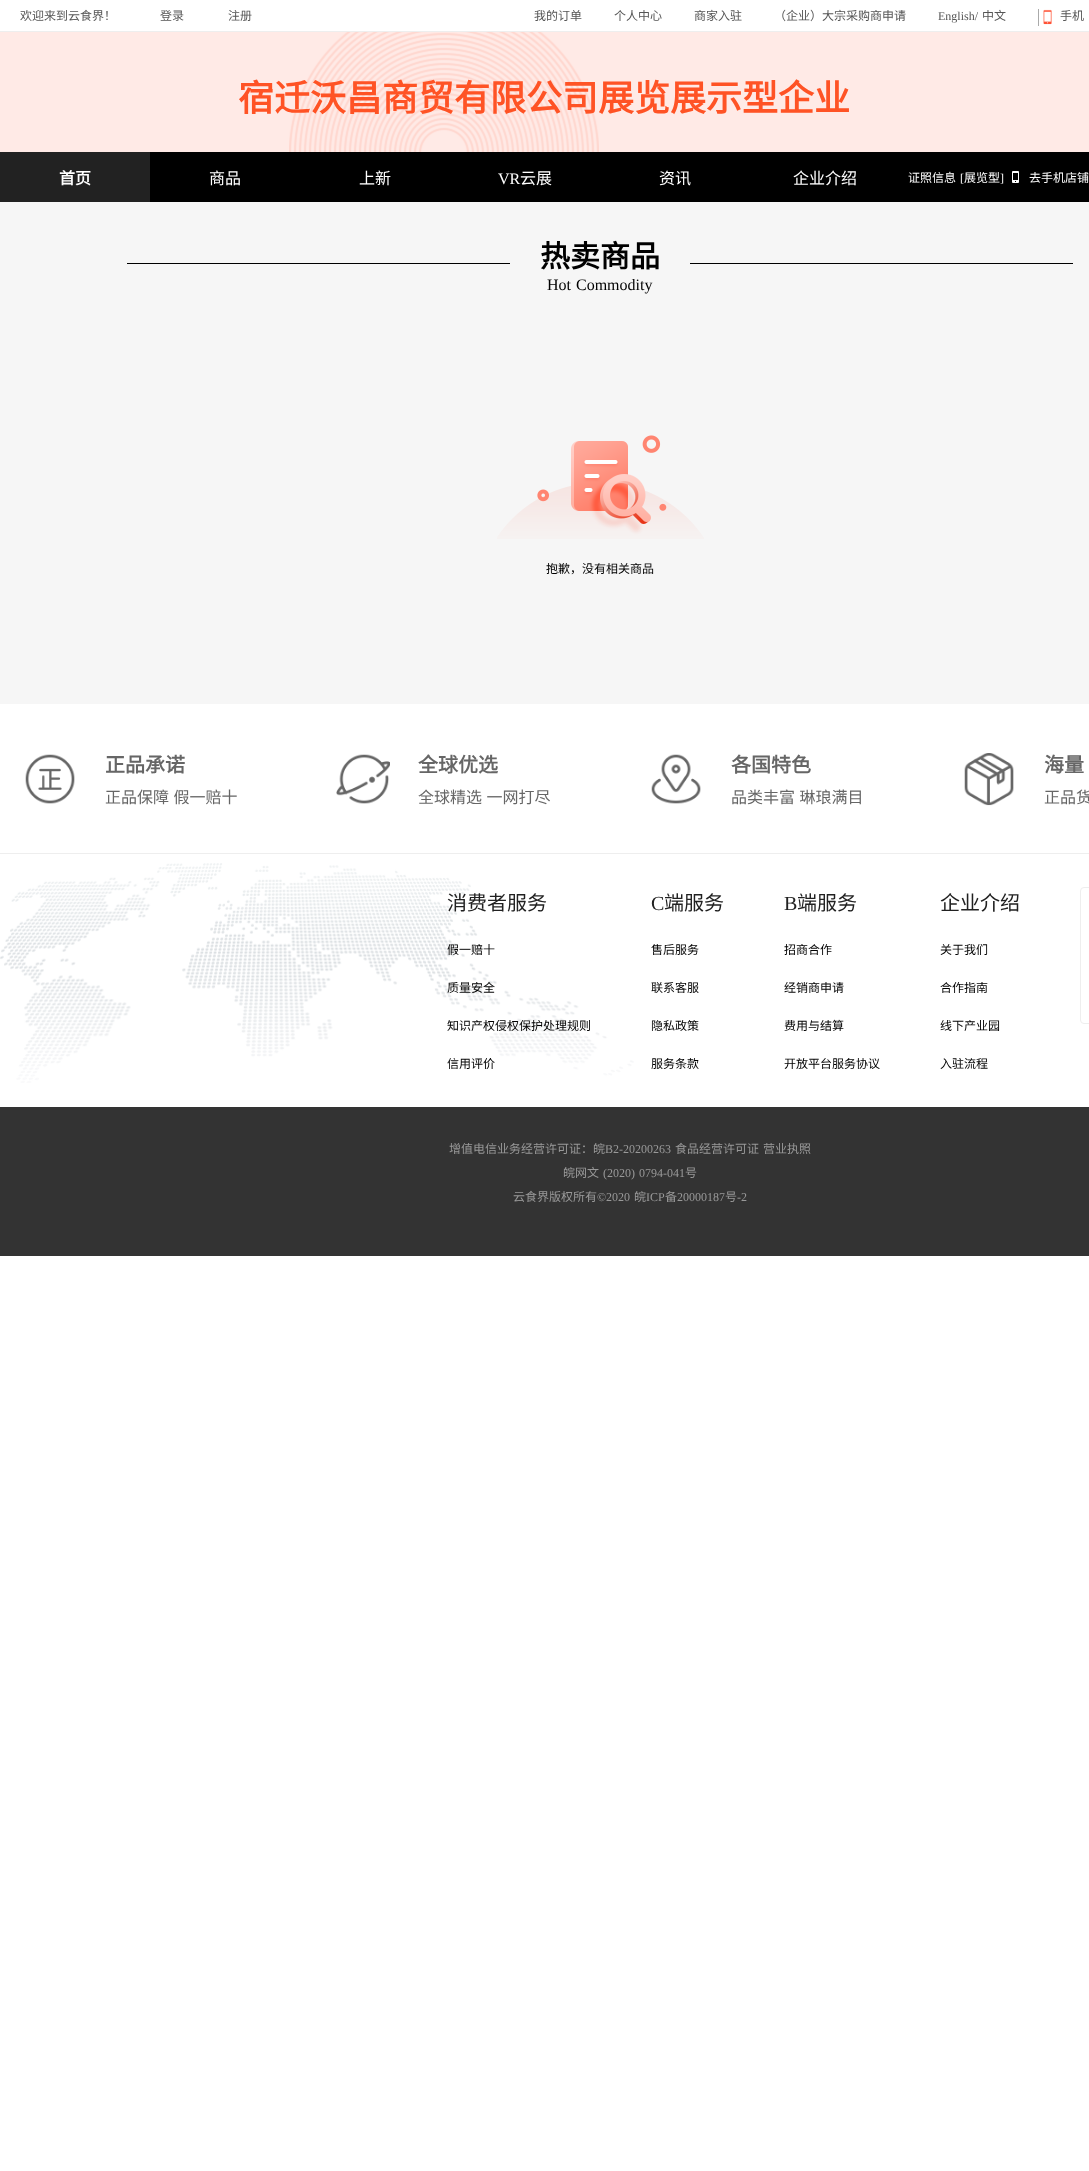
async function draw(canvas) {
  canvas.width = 1089
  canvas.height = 2171
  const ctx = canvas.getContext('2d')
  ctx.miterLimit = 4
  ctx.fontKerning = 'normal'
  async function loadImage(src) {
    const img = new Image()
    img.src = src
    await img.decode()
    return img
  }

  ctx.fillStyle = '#fff'
  ctx.fillRect(0, 0, 1089, 2171)
  ctx.fillStyle = '#eee'
  ctx.fillRect(0, 31, 1089, 1)
  ctx.font = '12px Noto Sans CJK SC'
  ctx.fillStyle = '#555'
  ctx.fillText('欢迎来到云食界！', 20, 20)
  ctx.fillText('登录', 160, 20)
  ctx.fillText('注册', 228, 20)
  ctx.fillText('我的订单', 534, 20)
  ctx.fillText('个人中心', 614, 20)
  ctx.fillText('商家入驻', 694, 20)
  ctx.fillText('（企业）大宗采购商申请', 774, 20)
  ctx.font = '12px Liberation Serif'
  ctx.fillText('English/', 938, 20)
  ctx.font = '12px Noto Sans CJK SC'
  ctx.fillText('中文', 982, 20)
  ctx.drawImage(await loadImage('image0.png'), 1043, 9, 9, 16)
  ctx.fillText('手机', 1060, 20)
  ctx.fillStyle = '#aaa'
  ctx.fillRect(1038, 9, 1, 17)
  ctx.fillStyle = '#f6f6f6'
  ctx.fillRect(0, 202, 1089, 502)
  ctx.drawImage(await loadImage('image1.png'), 0, 32, 1089, 120)
  ctx.font = 'bold 36px Noto Sans CJK SC'
  ctx.fillStyle = '#ff5325'
  ctx.fillText('宿迁沃昌商贸有限公司展览展示型企业', 238, 111)
  ctx.fillStyle = '#000'
  ctx.fillRect(150, 152, 939, 50)
  ctx.fillStyle = '#222'
  ctx.fillRect(0, 152, 150, 50)
  ctx.font = 'bold 16px Noto Sans CJK SC'
  ctx.fillStyle = '#fff'
  ctx.fillText('首页', 59, 184)
  ctx.font = '16px Noto Sans CJK SC'
  ctx.fillText('商品', 209, 184)
  ctx.fillText('上新', 359, 184)
  ctx.font = '16px Liberation Serif'
  ctx.fillText('VR', 498, 184)
  ctx.font = '16px Noto Sans CJK SC'
  ctx.fillText('云展', 520, 184)
  ctx.fillText('资讯', 659, 184)
  ctx.fillText('企业介绍', 793, 184)
  ctx.font = '12px Noto Sans CJK SC'
  ctx.fillText('证照信息', 908, 182)
  ctx.font = '12px Liberation Serif'
  ctx.fillText('[', 960, 182)
  ctx.font = '12px Noto Sans CJK SC'
  ctx.fillText('展览型', 964, 182)
  ctx.font = '12px Liberation Serif'
  ctx.fillText(']', 1000, 182)
  ctx.drawImage(await loadImage('image2.png'), 1012, 171, 7, 12)
  ctx.font = '12px Noto Sans CJK SC'
  ctx.fillText('去手机店铺', 1029, 182)
  ctx.fillStyle = '#000'
  ctx.fillRect(127, 263, 383, 1)
  ctx.font = 'bold 30px Noto Sans CJK SC'
  ctx.fillText('热卖商品', 540, 267)
  ctx.wordSpacing = '1px'
  ctx.font = '16px Liberation Serif'
  ctx.fillText('Hot Commodity', 547, 290)
  ctx.fillRect(690, 263, 383, 1)
  ctx.drawImage(await loadImage('image3.png'), 497, 435, 207, 104)
  ctx.wordSpacing = '0px'
  ctx.font = '12px Noto Sans CJK SC'
  ctx.fillText('抱歉，没有相关商品', 546, 573)
  ctx.fillStyle = '#eee'
  ctx.fillRect(0, 853, 1089, 1)
  ctx.drawImage(await loadImage('image4.png'), 25, 754, 50, 50)
  ctx.font = 'bold 20px Noto Sans CJK SC'
  ctx.fillStyle = '#666'
  ctx.fillText('正品承诺', 105, 772)
  ctx.wordSpacing = '1px'
  ctx.font = '16px Noto Sans CJK SC'
  ctx.fillText('正品保障 假一赔十', 105, 803)
  ctx.drawImage(await loadImage('image5.png'), 336, 754, 54, 50)
  ctx.wordSpacing = '0px'
  ctx.font = 'bold 20px Noto Sans CJK SC'
  ctx.fillText('全球优选', 418, 772)
  ctx.wordSpacing = '1px'
  ctx.font = '16px Noto Sans CJK SC'
  ctx.fillText('全球精选 一网打尽', 418, 803)
  ctx.drawImage(await loadImage('image6.png'), 651, 754, 50, 50)
  ctx.wordSpacing = '0px'
  ctx.font = 'bold 20px Noto Sans CJK SC'
  ctx.fillText('各国特色', 731, 772)
  ctx.wordSpacing = '1px'
  ctx.font = '16px Noto Sans CJK SC'
  ctx.fillText('品类丰富 琳琅满目', 731, 803)
  ctx.drawImage(await loadImage('image7.png'), 964, 753, 50, 53)
  ctx.wordSpacing = '0px'
  ctx.font = 'bold 20px Noto Sans CJK SC'
  ctx.fillText('海量', 1044, 772)
  ctx.wordSpacing = '1px'
  ctx.font = '16px Noto Sans CJK SC'
  ctx.fillText('正品货', 1044, 803)
  ctx.drawImage(await loadImage('image8.png'), 0, 863, 634, 220)
  ctx.wordSpacing = '0px'
  ctx.font = '20px Noto Sans CJK SC'
  ctx.fillStyle = '#212121'
  ctx.fillText('消费者服务', 447, 910)
  ctx.font = '12px Noto Sans CJK SC'
  ctx.fillStyle = '#000'
  ctx.fillText('假一赔十', 447, 954)
  ctx.fillText('质量安全', 447, 992)
  ctx.fillText('知识产权侵权保护处理规则', 447, 1030)
  ctx.fillText('信用评价', 447, 1068)
  ctx.font = '20px Liberation Serif'
  ctx.fillStyle = '#212121'
  ctx.fillText('C', 651, 910)
  ctx.font = '20px Noto Sans CJK SC'
  ctx.fillText('端服务', 664, 910)
  ctx.font = '12px Noto Sans CJK SC'
  ctx.fillStyle = '#000'
  ctx.fillText('售后服务', 651, 954)
  ctx.fillText('联系客服', 651, 992)
  ctx.fillText('隐私政策', 651, 1030)
  ctx.fillText('服务条款', 651, 1068)
  ctx.font = '20px Liberation Serif'
  ctx.fillStyle = '#212121'
  ctx.fillText('B', 784, 910)
  ctx.font = '20px Noto Sans CJK SC'
  ctx.fillText('端服务', 797, 910)
  ctx.font = '12px Noto Sans CJK SC'
  ctx.fillStyle = '#000'
  ctx.fillText('招商合作', 784, 954)
  ctx.fillText('经销商申请', 784, 992)
  ctx.fillText('费用与结算', 784, 1030)
  ctx.fillText('开放平台服务协议', 784, 1068)
  ctx.font = '20px Noto Sans CJK SC'
  ctx.fillStyle = '#212121'
  ctx.fillText('企业介绍', 940, 910)
  ctx.font = '12px Noto Sans CJK SC'
  ctx.fillStyle = '#000'
  ctx.fillText('关于我们', 940, 954)
  ctx.fillText('合作指南', 940, 992)
  ctx.fillText('线下产业园', 940, 1030)
  ctx.fillText('入驻流程', 940, 1068)
  ctx.beginPath()
  ctx.roundRect(1080.5, 887.5, 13, 136, 3.5)
  ctx.strokeStyle = '#eee'
  ctx.stroke()
  ctx.fillStyle = '#333'
  ctx.fillRect(0, 1107, 1089, 149)
  ctx.fillStyle = '#999'
  ctx.fillText('增值电信业务经营许可证：皖', 449, 1153)
  ctx.font = '12px Liberation Serif'
  ctx.fillText('B2-20200263', 605, 1153)
  ctx.font = '12px Noto Sans CJK SC'
  ctx.fillText('食品经营许可证', 675, 1153)
  ctx.fillText('营业执照', 763, 1153)
  ctx.fillText('皖网文', 563, 1177)
  ctx.wordSpacing = '1px'
  ctx.font = '12px Liberation Serif'
  ctx.fillText('(2020) 0794-041', 603, 1177)
  ctx.wordSpacing = '0px'
  ctx.font = '12px Noto Sans CJK SC'
  ctx.fillText('号', 685, 1177)
  ctx.fillText('云食界版权所有', 513, 1201)
  ctx.font = '12px Liberation Serif'
  ctx.fillText('©2020', 597, 1201)
  ctx.font = '12px Noto Sans CJK SC'
  ctx.fillText('皖', 634, 1201)
  ctx.font = '12px Liberation Serif'
  ctx.fillText('ICP', 646, 1201)
  ctx.font = '12px Noto Sans CJK SC'
  ctx.fillText('备', 665, 1201)
  ctx.font = '12px Liberation Serif'
  ctx.fillText('20000187', 677, 1201)
  ctx.font = '12px Noto Sans CJK SC'
  ctx.fillText('号', 725, 1201)
  ctx.font = '12px Liberation Serif'
  ctx.fillText('-2', 737, 1201)
}

draw(document.querySelector('canvas'))
